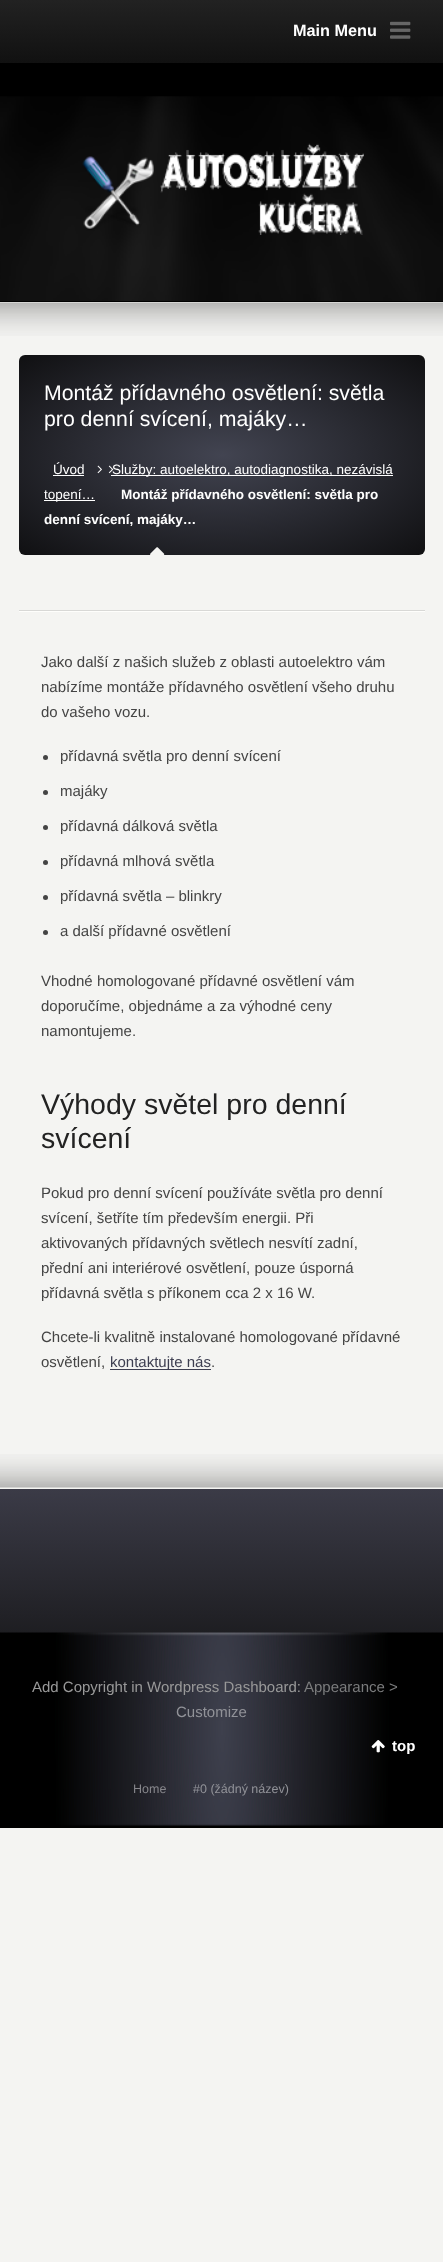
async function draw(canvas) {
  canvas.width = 443
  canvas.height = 2262
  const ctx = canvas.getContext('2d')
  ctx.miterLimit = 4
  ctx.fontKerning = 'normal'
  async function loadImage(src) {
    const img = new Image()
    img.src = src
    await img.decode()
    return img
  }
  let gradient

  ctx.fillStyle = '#f4f4f2'
  ctx.fillRect(0, 0, 443, 2262)
  gradient = ctx.createLinearGradient(222, 0, 222, 63)
  gradient.addColorStop(0, '#222')
  gradient.addColorStop(1, '#111')
  ctx.fillStyle = gradient
  ctx.fillRect(0, 0, 443, 63)
  ctx.font = 'bold 16.25px Liberation Sans'
  ctx.fillStyle = '#fff'
  ctx.fillText('Main Menu', 293, 36)
  ctx.drawImage(await loadImage('image0.png'), 390, 21, 21, 18)
  ctx.fillStyle = '#000'
  ctx.fillRect(0, 63, 443, 239)
  ctx.drawImage(await loadImage('image1.png'), 0, 96, 443, 205)
  ctx.drawImage(await loadImage('image2.png'), 82, 143, 282, 92)
  ctx.drawImage(await loadImage('image3.png'), 0, 302, 443, 34)
  gradient = ctx.createRadialGradient(222, 926.13, 0, 222, 926.13, 287)
  gradient.addColorStop(0, '#424451')
  gradient.addColorStop(1, '#101012')
  ctx.fillStyle = gradient
  ctx.beginPath()
  ctx.roundRect(19, 355, 406, 200, 6)
  ctx.save()
  ctx.clip()
  ctx.scale(1, 141 / 287)
  ctx.fillRect(0, 0, 443, 4605)
  ctx.restore()
  ctx.font = '21.25px Liberation Sans'
  ctx.fillStyle = '#fff'
  ctx.fillText('Montáž přídavného osvětlení: světla', 44, 400)
  ctx.fillText('pro denní svícení, majáky…', 44, 426)
  ctx.font = '13.5px Liberation Sans'
  ctx.fillText('Úvod', 53, 474)
  ctx.fillRect(53, 475, 31, 1)
  ctx.drawImage(await loadImage('image4.png'), 97, 465, 5, 9)
  ctx.fillRect(111, 475, 282, 1)
  ctx.fillText('Služby: autoelektro, autodiagnostika, nezávislá', 112, 474)
  ctx.drawImage(await loadImage('image5.png'), 108, 465, 6, 9)
  ctx.fillRect(44, 500, 51, 1)
  ctx.fillText('topení…', 44, 499)
  ctx.font = 'bold 13.5px Liberation Sans'
  ctx.fillText('Montáž přídavného osvětlení: světla pro', 121, 499)
  ctx.fillText('denní svícení, majáky…', 44, 524)
  ctx.drawImage(await loadImage('image6.png'), 150, 547, 15, 8)
  ctx.fillStyle = '#fefefc'
  ctx.fillRect(19, 611, 406, 1)
  ctx.fillStyle = '#d8d8d6'
  ctx.fillRect(19, 610, 406, 1)
  ctx.font = '15px Liberation Sans'
  ctx.fillStyle = '#444'
  ctx.fillText('Jako další z našich služeb z oblasti autoelektro vám', 41, 667)
  ctx.fillText('nabízíme montáže přídavného osvětlení všeho druhu', 41, 692)
  ctx.fillText('do vašeho vozu.', 41, 717)
  ctx.beginPath()
  ctx.arc(45.5, 757.5, 2.5, 0, 2 * Math.PI)
  ctx.fill()
  ctx.fillText('přídavná světla pro denní svícení', 60, 761)
  ctx.beginPath()
  ctx.arc(45.5, 792.5, 2.5, 0, 2 * Math.PI)
  ctx.fill()
  ctx.fillText('majáky', 60, 796)
  ctx.beginPath()
  ctx.arc(45.5, 827.5, 2.5, 0, 2 * Math.PI)
  ctx.fill()
  ctx.fillText('přídavná dálková světla', 60, 831)
  ctx.beginPath()
  ctx.arc(45.5, 862.5, 2.5, 0, 2 * Math.PI)
  ctx.fill()
  ctx.fillText('přídavná mlhová světla', 60, 866)
  ctx.beginPath()
  ctx.arc(45.5, 897.5, 2.5, 0, 2 * Math.PI)
  ctx.fill()
  ctx.fillText('přídavná světla – blinkry', 60, 901)
  ctx.beginPath()
  ctx.arc(45.5, 932.5, 2.5, 0, 2 * Math.PI)
  ctx.fill()
  ctx.fillText('a další přídavné osvětlení', 60, 936)
  ctx.fillText('Vhodné homologované přídavné osvětlení vám', 41, 986)
  ctx.fillText('doporučíme, objednáme a za výhodné ceny', 41, 1011)
  ctx.fillText('namontujeme.', 41, 1036)
  ctx.font = '28.5px Liberation Sans'
  ctx.fillStyle = '#222'
  ctx.fillText('Výhody světel pro denní', 41, 1114)
  ctx.fillText('svícení', 41, 1148)
  ctx.font = '15px Liberation Sans'
  ctx.fillStyle = '#444'
  ctx.fillText('Pokud pro denní svícení používáte světla pro denní', 41, 1198)
  ctx.fillText('svícení, šetříte tím především energii. Při', 41, 1223)
  ctx.fillText('aktivovaných přídavných světlech nesvítí zadní,', 41, 1248)
  ctx.fillText('přední ani interiérové osvětlení, pouze úsporná', 41, 1273)
  ctx.fillText('přídavná světla s příkonem cca 2 x 16 W.', 41, 1298)
  ctx.fillText('Chcete-li kvalitně instalované homologované přídavné', 41, 1342)
  ctx.fillText('osvětlení,', 41, 1367)
  ctx.fillStyle = '#3d3e50'
  ctx.fillRect(110, 1369, 101, 1)
  ctx.fillText('kontaktujte nás', 110, 1367)
  ctx.fillStyle = '#444'
  ctx.fillText('.', 211, 1367)
  ctx.drawImage(await loadImage('image7.png'), 0, 1454, 443, 34)
  gradient = ctx.createLinearGradient(222, 1489, 222, 1828)
  gradient.addColorStop(0, '#3b3b47')
  gradient.addColorStop(0.64, '#0f0f0f')
  ctx.fillStyle = gradient
  ctx.fillRect(0, 1489, 443, 144)
  ctx.fillStyle = '#000'
  ctx.fillRect(0, 1826, 443, 2)
  ctx.drawImage(await loadImage('image8.png'), 0, 1632, 443, 194)
  ctx.fillStyle = '#999'
  ctx.fillText('Add Copyright in Wordpress Dashboard:', 32, 1692)
  ctx.fillStyle = '#7b7c7d'
  ctx.fillText('Appearance >', 304, 1692)
  ctx.fillStyle = '#919298'
  ctx.fillText('Customize', 176, 1717)
  ctx.drawImage(await loadImage('image9.png'), 371, 1740, 14, 13)
  ctx.font = 'bold 15px Liberation Sans'
  ctx.fillStyle = '#fff'
  ctx.fillText('top', 392, 1751)
  ctx.font = '12.5px Liberation Sans'
  ctx.fillStyle = '#86868b'
  ctx.fillText('Home', 133, 1793)
  ctx.fillStyle = '#919298'
  ctx.fillText('#0 (žádný název)', 193, 1793)
}

draw(document.querySelector('canvas'))
